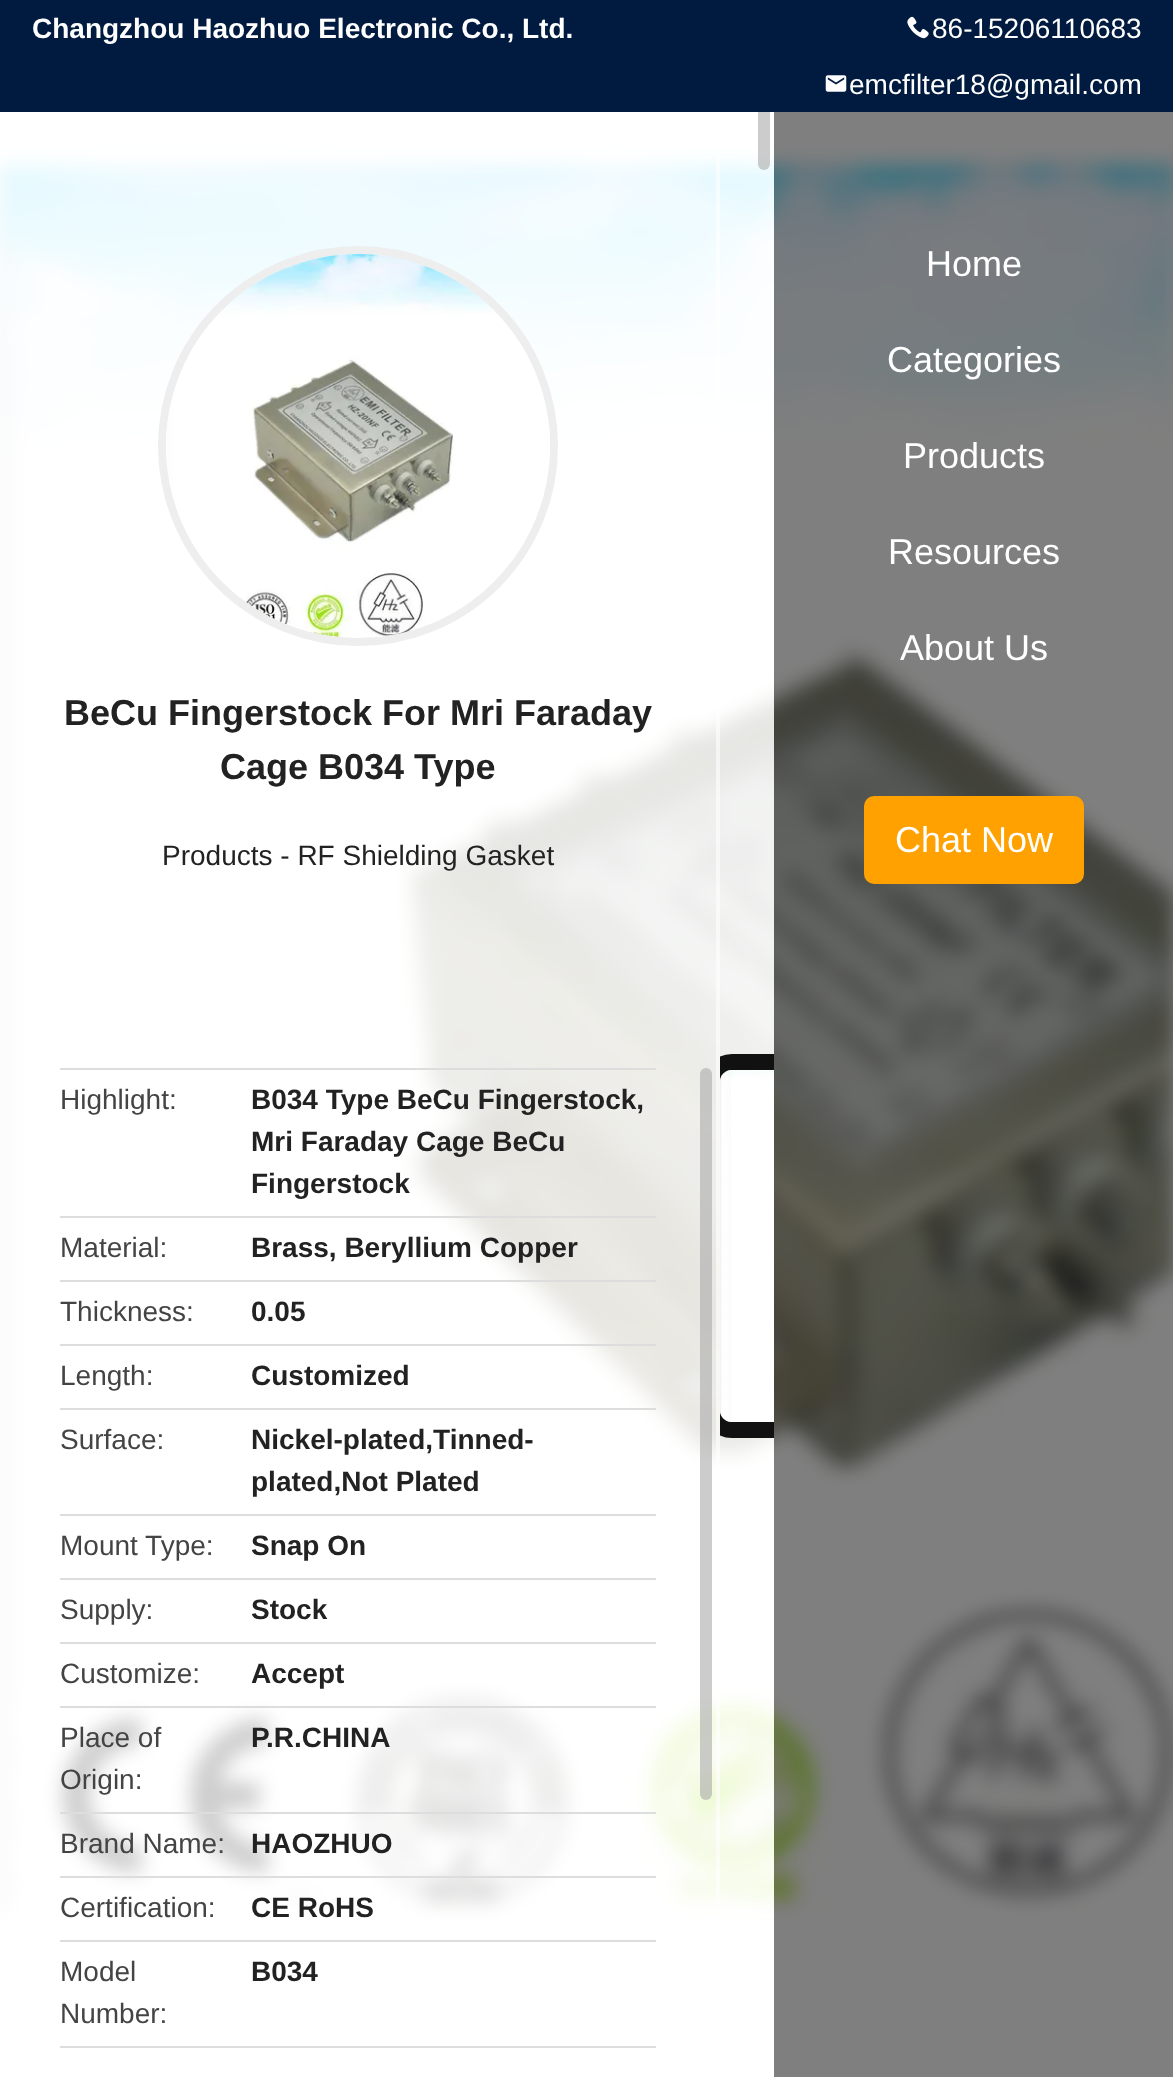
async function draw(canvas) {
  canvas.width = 1173
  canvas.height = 2077
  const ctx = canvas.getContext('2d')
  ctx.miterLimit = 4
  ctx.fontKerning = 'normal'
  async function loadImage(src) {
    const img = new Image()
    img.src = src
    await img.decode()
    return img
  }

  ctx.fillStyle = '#fff'
  ctx.fillRect(0, 0, 1173, 2077)
  ctx.drawImage(await loadImage('image3.png'), 0, 148, 1173, 1774)
  ctx.fillStyle = '#ffffffcc'
  ctx.fillRect(720, 148, 54, 1770)
  ctx.fillStyle = '#aaaaaa99'
  ctx.beginPath()
  ctx.roundRect(758, 56, 12, 114, 6)
  ctx.fill()
  ctx.fillStyle = '#001b3f'
  ctx.fillRect(0, 0, 1173, 112)
  ctx.font = 'bold 28px Liberation Sans'
  ctx.fillStyle = '#fff'
  ctx.fillText('Changzhou Haozhuo Electronic Co., Ltd.', 32, 38)
  ctx.drawImage(await loadImage('image0.png'), 907, 16, 22, 23)
  ctx.font = '28px Liberation Sans'
  ctx.fillText('86-15206110683', 932, 38)
  ctx.drawImage(await loadImage('image1.png'), 825, 75, 22, 17)
  ctx.fillText('emcfilter18@gmail.com', 849, 94)
  ctx.fillStyle = '#00000080'
  ctx.fillRect(774, 112, 399, 1965)
  ctx.fillStyle = '#ffffffcc'
  ctx.fillRect(0, 148, 720, 1774)
  ctx.fillStyle = '#ffffff99'
  ctx.fillRect(716, 155, 4, 1751)
  ctx.fillStyle = '#aaaaaa99'
  ctx.beginPath()
  ctx.roundRect(700, 1068, 12, 732, 6)
  ctx.fill()
  ctx.save()
  ctx.beginPath()
  ctx.rect(720, 56, 54, 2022)
  ctx.clip()
  ctx.beginPath()
  ctx.roundRect(712, 1062, 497, 368, 20)
  ctx.strokeStyle = '#111'
  ctx.lineWidth = 16
  ctx.stroke()
  ctx.restore()
  ctx.drawImage(await loadImage('image2.png'), 720, 1070, 54, 352)
  ctx.font = '36px Liberation Sans'
  ctx.fillStyle = '#fff'
  ctx.fillText('Home', 926, 276)
  ctx.fillText('Categories', 887, 372)
  ctx.fillText('Products', 903, 468)
  ctx.fillText('Resources', 888, 564)
  ctx.fillText('About Us', 900, 660)
  ctx.fillStyle = '#ffa100'
  ctx.beginPath()
  ctx.roundRect(864, 796, 220, 88, 10)
  ctx.fill()
  ctx.fillStyle = '#fff'
  ctx.fillText('Chat Now', 895, 852)
  ctx.beginPath()
  ctx.arc(358, 446, 196, 0, 2 * Math.PI)
  ctx.strokeStyle = '#eee'
  ctx.lineWidth = 8
  ctx.stroke()
  ctx.drawImage(await loadImage('image4.png'), 166, 254, 384, 383)
  ctx.font = 'bold 36px Liberation Sans'
  ctx.fillStyle = '#222'
  ctx.fillText('BeCu Fingerstock For Mri Faraday', 64, 725)
  ctx.fillText('Cage B034 Type', 220, 779)
  ctx.font = '28px Liberation Sans'
  ctx.fillText('Products - RF Shielding Gasket', 162, 865)
  ctx.fillStyle = '#ddd'
  ctx.fillRect(60, 1068, 596, 2)
  ctx.fillStyle = '#444'
  ctx.fillText('Highlight:', 60, 1109)
  ctx.font = 'bold 28px Liberation Sans'
  ctx.fillStyle = '#222'
  ctx.fillText('B034 Type BeCu Fingerstock,', 251, 1109)
  ctx.fillText('Mri Faraday Cage BeCu', 251, 1151)
  ctx.fillText('Fingerstock', 251, 1193)
  ctx.fillStyle = '#ddd'
  ctx.fillRect(60, 1216, 596, 2)
  ctx.font = '28px Liberation Sans'
  ctx.fillStyle = '#444'
  ctx.fillText('Material:', 60, 1257)
  ctx.font = 'bold 28px Liberation Sans'
  ctx.fillStyle = '#222'
  ctx.fillText('Brass, Beryllium Copper', 251, 1257)
  ctx.fillStyle = '#ddd'
  ctx.fillRect(60, 1280, 596, 2)
  ctx.font = '28px Liberation Sans'
  ctx.fillStyle = '#444'
  ctx.fillText('Thickness:', 60, 1321)
  ctx.font = 'bold 28px Liberation Sans'
  ctx.fillStyle = '#222'
  ctx.fillText('0.05', 251, 1321)
  ctx.fillStyle = '#ddd'
  ctx.fillRect(60, 1344, 596, 2)
  ctx.font = '28px Liberation Sans'
  ctx.fillStyle = '#444'
  ctx.fillText('Length:', 60, 1385)
  ctx.font = 'bold 28px Liberation Sans'
  ctx.fillStyle = '#222'
  ctx.fillText('Customized', 251, 1385)
  ctx.fillStyle = '#ddd'
  ctx.fillRect(60, 1408, 596, 2)
  ctx.font = '28px Liberation Sans'
  ctx.fillStyle = '#444'
  ctx.fillText('Surface:', 60, 1449)
  ctx.font = 'bold 28px Liberation Sans'
  ctx.fillStyle = '#222'
  ctx.fillText('Nickel-plated,Tinned-', 251, 1449)
  ctx.fillText('plated,Not Plated', 251, 1491)
  ctx.fillStyle = '#ddd'
  ctx.fillRect(60, 1514, 596, 2)
  ctx.font = '28px Liberation Sans'
  ctx.fillStyle = '#444'
  ctx.fillText('Mount Type:', 60, 1555)
  ctx.font = 'bold 28px Liberation Sans'
  ctx.fillStyle = '#222'
  ctx.fillText('Snap On', 251, 1555)
  ctx.fillStyle = '#ddd'
  ctx.fillRect(60, 1578, 596, 2)
  ctx.font = '28px Liberation Sans'
  ctx.fillStyle = '#444'
  ctx.fillText('Supply:', 60, 1619)
  ctx.font = 'bold 28px Liberation Sans'
  ctx.fillStyle = '#222'
  ctx.fillText('Stock', 251, 1619)
  ctx.fillStyle = '#ddd'
  ctx.fillRect(60, 1642, 596, 2)
  ctx.font = '28px Liberation Sans'
  ctx.fillStyle = '#444'
  ctx.fillText('Customize:', 60, 1683)
  ctx.font = 'bold 28px Liberation Sans'
  ctx.fillStyle = '#222'
  ctx.fillText('Accept', 251, 1683)
  ctx.fillStyle = '#ddd'
  ctx.fillRect(60, 1706, 596, 2)
  ctx.font = '28px Liberation Sans'
  ctx.fillStyle = '#444'
  ctx.fillText('Place of', 60, 1747)
  ctx.fillText('Origin:', 60, 1789)
  ctx.font = 'bold 28px Liberation Sans'
  ctx.fillStyle = '#222'
  ctx.fillText('P.R.CHINA', 251, 1747)
  ctx.fillStyle = '#ddd'
  ctx.fillRect(60, 1812, 596, 2)
  ctx.font = '28px Liberation Sans'
  ctx.fillStyle = '#444'
  ctx.fillText('Brand Name:', 60, 1853)
  ctx.font = 'bold 28px Liberation Sans'
  ctx.fillStyle = '#222'
  ctx.fillText('HAOZHUO', 251, 1853)
  ctx.fillStyle = '#ddd'
  ctx.fillRect(60, 1876, 596, 2)
  ctx.font = '28px Liberation Sans'
  ctx.fillStyle = '#444'
  ctx.fillText('Certification:', 60, 1917)
  ctx.font = 'bold 28px Liberation Sans'
  ctx.fillStyle = '#222'
  ctx.fillText('CE RoHS', 251, 1917)
  ctx.fillStyle = '#ddd'
  ctx.fillRect(60, 1940, 596, 2)
  ctx.font = '28px Liberation Sans'
  ctx.fillStyle = '#444'
  ctx.fillText('Model', 60, 1981)
  ctx.fillText('Number:', 60, 2023)
  ctx.font = 'bold 28px Liberation Sans'
  ctx.fillStyle = '#222'
  ctx.fillText('B034', 251, 1981)
  ctx.fillStyle = '#ddd'
  ctx.fillRect(60, 2046, 596, 2)
}

draw(document.querySelector('canvas'))
